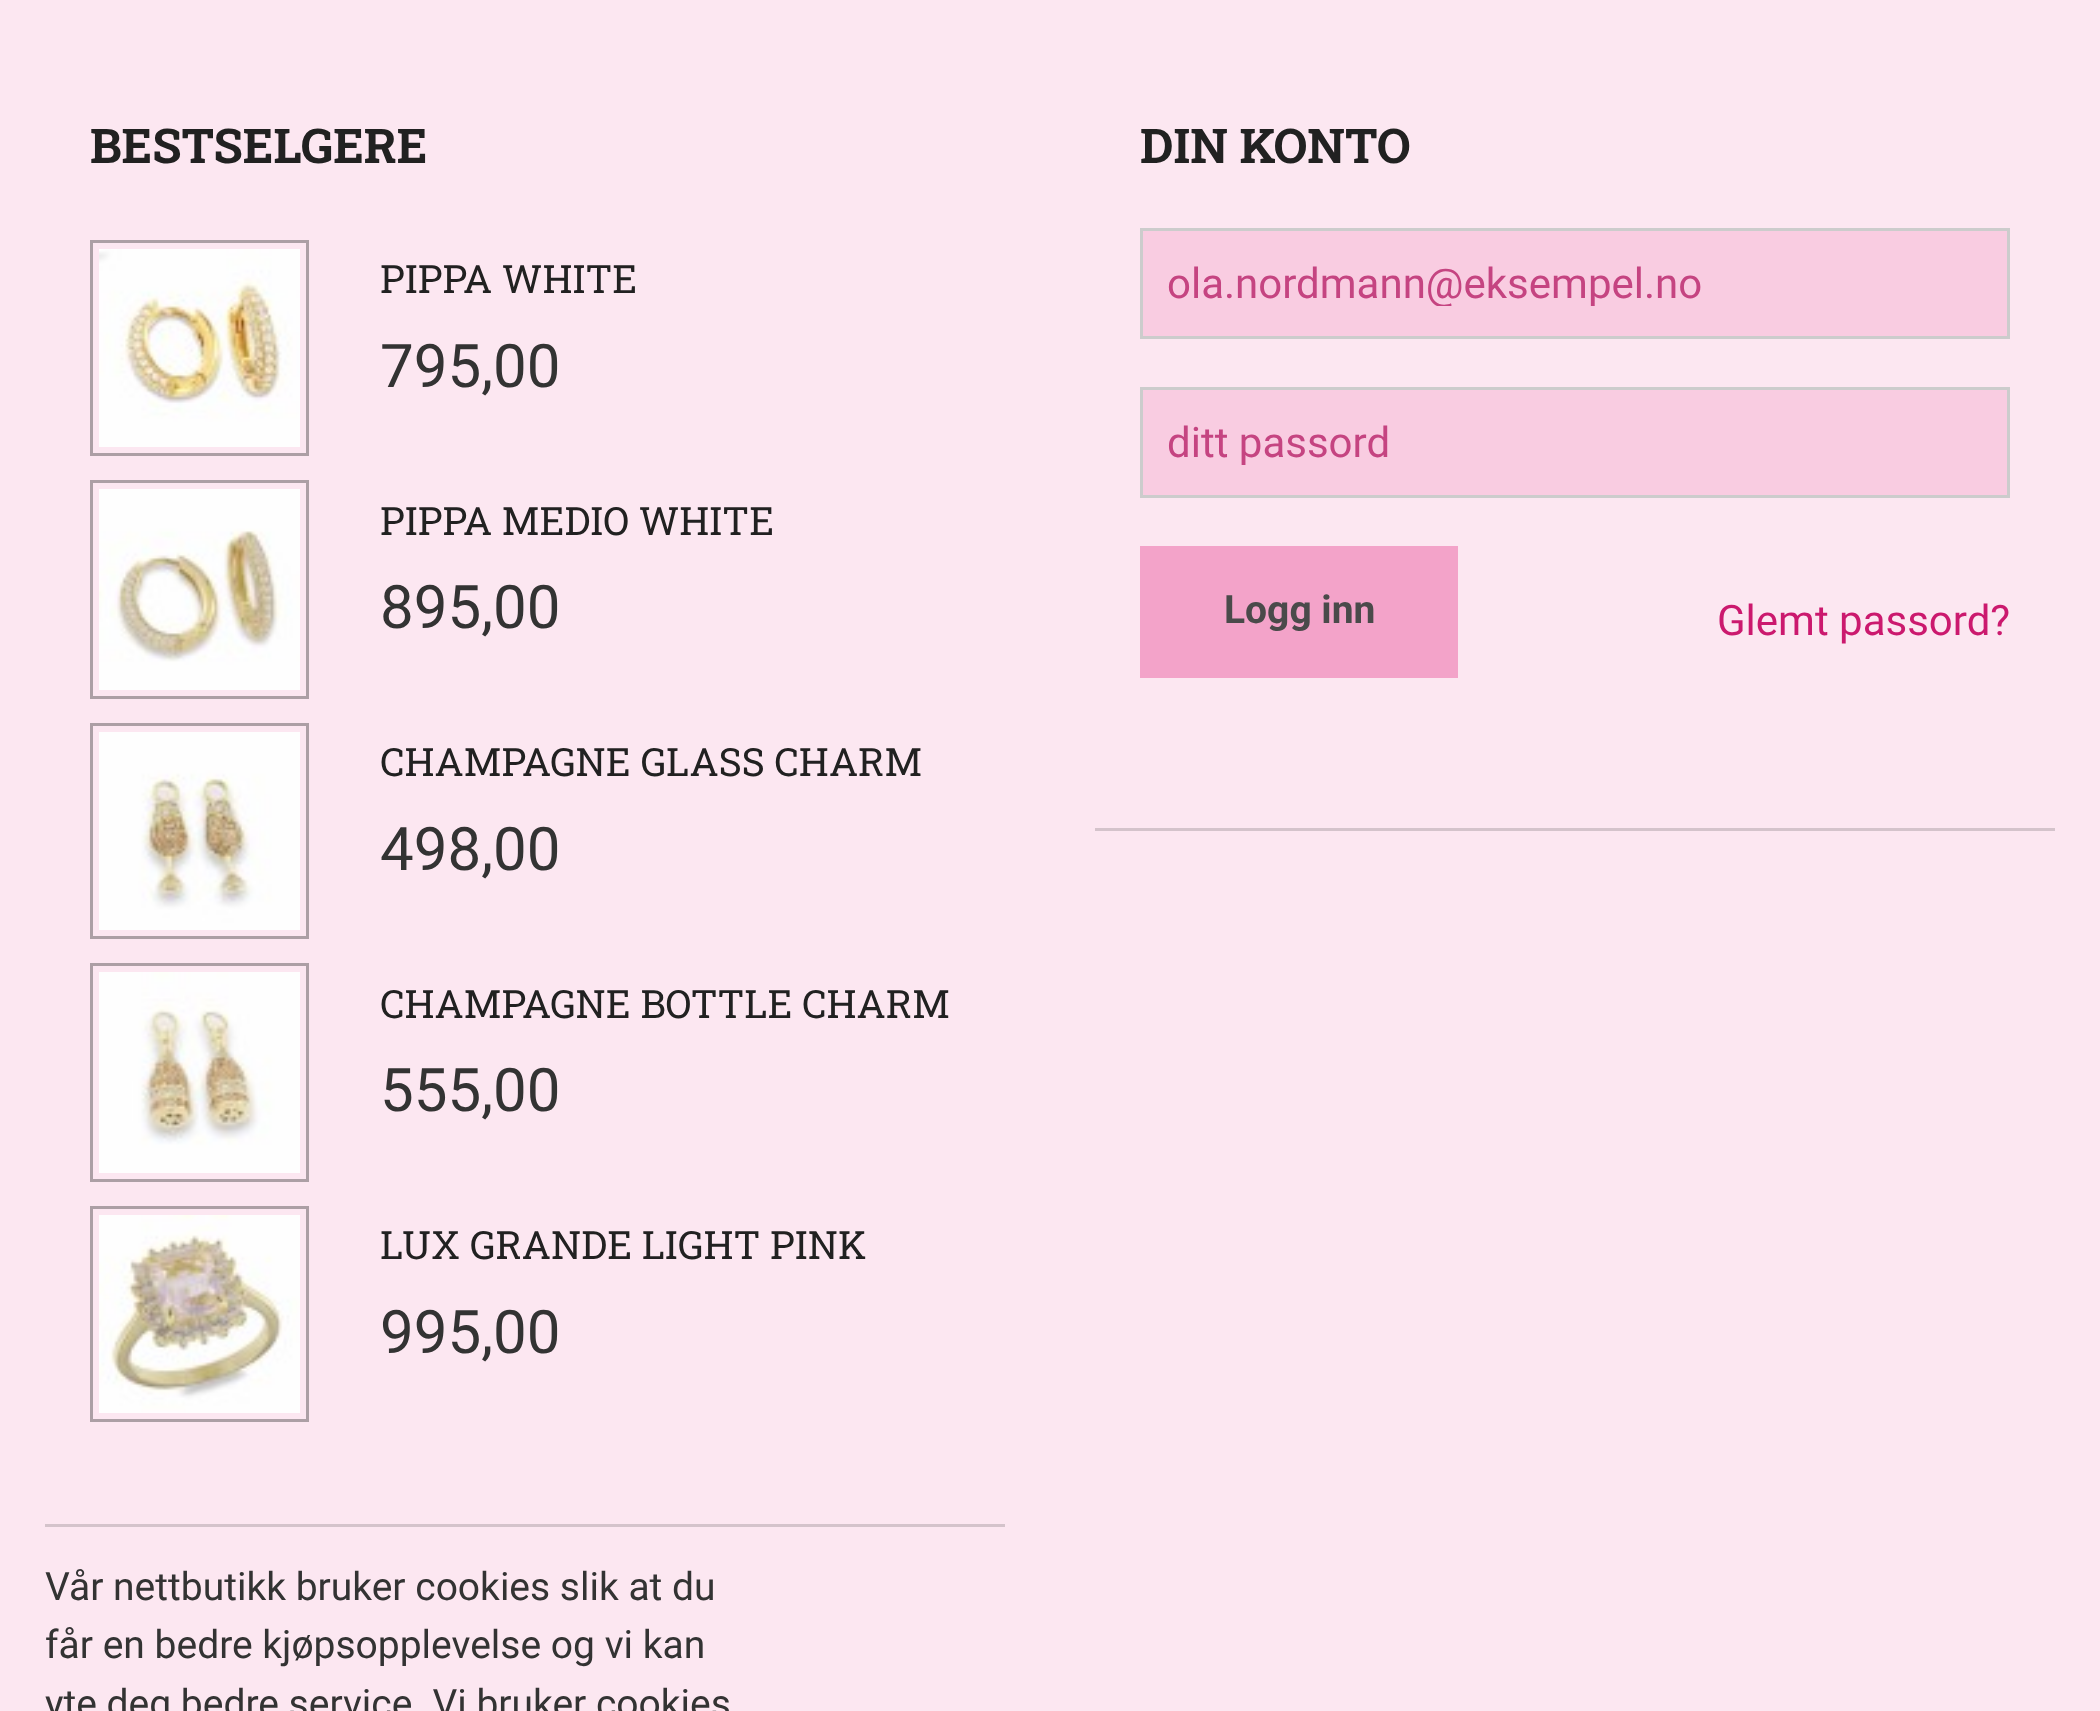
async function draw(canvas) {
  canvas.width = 2100
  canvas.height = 1711
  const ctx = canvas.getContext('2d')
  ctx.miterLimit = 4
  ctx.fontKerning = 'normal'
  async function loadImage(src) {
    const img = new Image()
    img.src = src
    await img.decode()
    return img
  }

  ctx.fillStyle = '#fce7f1'
  ctx.fillRect(0, 0, 2100, 1711)
  ctx.fillStyle = '#d4c3cb'
  ctx.fillRect(45, 1524, 960, 3)
  ctx.font = 'bold 48px Roboto Slab'
  ctx.fillStyle = '#212121'
  ctx.fillText('BESTSELGERE', 90, 163)
  ctx.strokeStyle = '#ac9fa5'
  ctx.lineWidth = 3
  ctx.strokeRect(91.5, 241.5, 216, 213)
  ctx.drawImage(await loadImage('image0.png'), 99, 249, 201, 198)
  ctx.font = '39px Roboto Slab'
  ctx.fillText('PIPPA WHITE', 380, 293)
  ctx.font = '60px Roboto'
  ctx.fillStyle = '#333'
  ctx.fillText('795,00', 380, 387)
  ctx.strokeRect(91.5, 481.5, 216, 216)
  ctx.drawImage(await loadImage('image1.png'), 99, 489, 201, 201)
  ctx.font = '39px Roboto Slab'
  ctx.fillStyle = '#212121'
  ctx.fillText('PIPPA MEDIO WHITE', 380, 535)
  ctx.font = '60px Roboto'
  ctx.fillStyle = '#333'
  ctx.fillText('895,00', 380, 628)
  ctx.strokeRect(91.5, 724.5, 216, 213)
  ctx.drawImage(await loadImage('image2.png'), 99, 732, 201, 198)
  ctx.font = '39px Roboto Slab'
  ctx.fillStyle = '#212121'
  ctx.fillText('CHAMPAGNE GLASS CHARM', 380, 776)
  ctx.font = '60px Roboto'
  ctx.fillStyle = '#333'
  ctx.fillText('498,00', 380, 870)
  ctx.strokeRect(91.5, 964.5, 216, 216)
  ctx.drawImage(await loadImage('image3.png'), 99, 972, 201, 201)
  ctx.font = '39px Roboto Slab'
  ctx.fillStyle = '#212121'
  ctx.fillText('CHAMPAGNE BOTTLE CHARM', 380, 1018)
  ctx.font = '60px Roboto'
  ctx.fillStyle = '#333'
  ctx.fillText('555,00', 380, 1111)
  ctx.strokeRect(91.5, 1207.5, 216, 213)
  ctx.drawImage(await loadImage('image4.png'), 99, 1215, 201, 198)
  ctx.font = '39px Roboto Slab'
  ctx.fillStyle = '#212121'
  ctx.fillText('LUX GRANDE LIGHT PINK', 380, 1259)
  ctx.font = '60px Roboto'
  ctx.fillStyle = '#333'
  ctx.fillText('995,00', 380, 1353)
  ctx.fillStyle = '#d4c3cb'
  ctx.fillRect(1095, 828, 960, 3)
  ctx.font = 'bold 48px Roboto Slab'
  ctx.fillStyle = '#212121'
  ctx.fillText('DIN KONTO', 1140, 163)
  ctx.fillStyle = '#f9cce1'
  ctx.beginPath()
  ctx.rect(1141.5, 229.5, 867, 108)
  ctx.fill()
  ctx.strokeStyle = '#ccc'
  ctx.stroke()
  ctx.save()
  ctx.beginPath()
  ctx.rect(1167, 258, 816, 48)
  ctx.clip()
  ctx.font = '42px Roboto'
  ctx.fillStyle = '#c54481'
  ctx.fillText('ola.nordmann@eksempel.no', 1167, 298)
  ctx.restore()
  ctx.beginPath()
  ctx.rect(1141.5, 388.5, 867, 108)
  ctx.fill()
  ctx.stroke()
  ctx.save()
  ctx.beginPath()
  ctx.rect(1167, 417, 816, 48)
  ctx.clip()
  ctx.font = '42px Roboto'
  ctx.fillStyle = '#c54481'
  ctx.fillText('ditt passord', 1167, 457)
  ctx.restore()
  ctx.fillStyle = '#f3a3c9'
  ctx.fillRect(1140, 546, 318, 132)
  ctx.font = 'bold 39px Roboto'
  ctx.fillStyle = '#4a4a4a'
  ctx.fillText('Logg inn', 1224, 623)
  ctx.font = '42px Roboto'
  ctx.fillStyle = '#cb196e'
  ctx.fillText('Glemt passord?', 1717, 635)
  ctx.font = '39px Roboto'
  ctx.fillStyle = '#333'
  ctx.fillText('Vår nettbutikk bruker cookies slik at du', 45, 1600)
  ctx.fillText('får en bedre kjøpsopplevelse og vi kan', 45, 1658)
  ctx.fillText('yte deg bedre service. Vi bruker cookies', 45, 1717)
}

draw(document.querySelector('canvas'))
